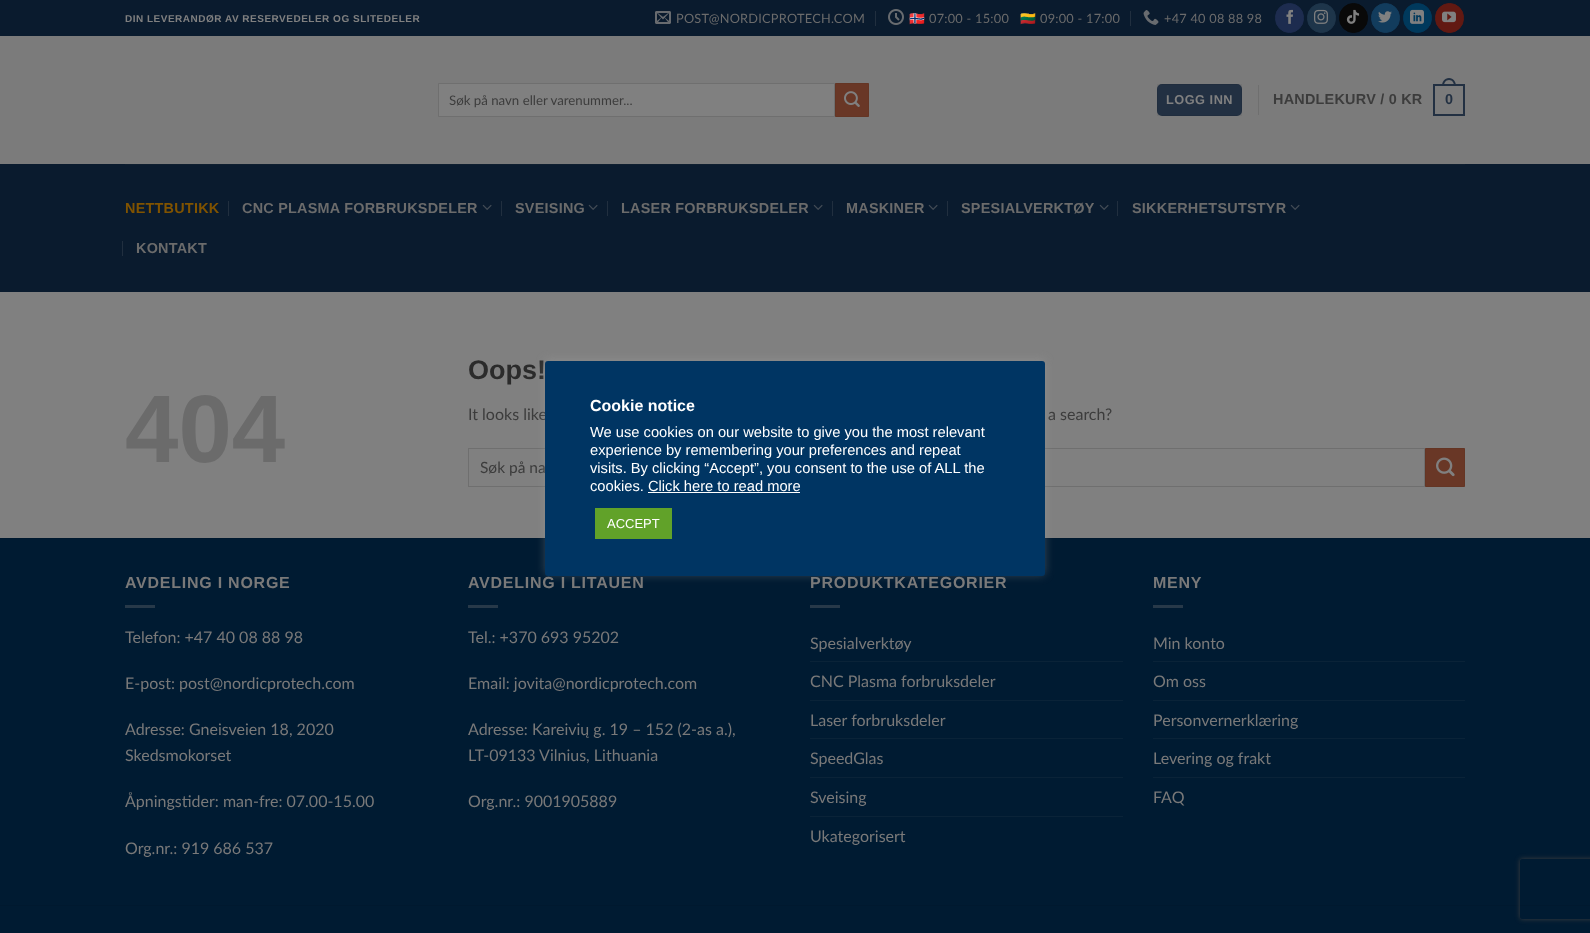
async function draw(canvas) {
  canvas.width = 1590
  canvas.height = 933
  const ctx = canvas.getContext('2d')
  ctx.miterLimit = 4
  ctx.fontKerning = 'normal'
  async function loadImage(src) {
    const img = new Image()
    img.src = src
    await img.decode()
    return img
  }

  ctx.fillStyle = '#808080'
  ctx.fillRect(0, 0, 1590, 933)
  ctx.fillStyle = '#0a1b2e'
  ctx.fillRect(0, 0, 1590, 36)
  ctx.letterSpacing = '0.5px'
  ctx.font = 'bold 10px Liberation Sans'
  ctx.fillStyle = '#808080'
  ctx.fillText('DIN LEVERANDØR AV RESERVEDELER OG SLITEDELER', 125, 22)
  ctx.drawImage(await loadImage('image0.png'), 655, 11, 16, 13)
  ctx.letterSpacing = '0.25px'
  ctx.font = '12.75px Lato'
  ctx.fillStyle = '#6b6b6b'
  ctx.fillText('POST@NORDICPROTECH.COM', 676, 23)
  ctx.fillStyle = '#212f3f'
  ctx.fillRect(875, 11, 1, 15)
  ctx.drawImage(await loadImage('image1.png'), 888, 9, 16, 16)
  ctx.font = '12.75px Noto Color Emoji'
  ctx.fillStyle = '#6b6b6b'
  ctx.fillText('🇳🇴', 909, 23)
  ctx.font = '12.75px Lato'
  ctx.fillText('07:00 - 15:00', 929, 23)
  ctx.font = '12.75px Noto Color Emoji'
  ctx.fillText('🇱🇹', 1020, 23)
  ctx.font = '12.75px Lato'
  ctx.fillText('09:00 - 17:00', 1040, 23)
  ctx.fillStyle = '#212f3f'
  ctx.fillRect(1130, 11, 1, 15)
  ctx.drawImage(await loadImage('image2.png'), 1143, 10, 16, 15)
  ctx.fillStyle = '#6b6b6b'
  ctx.fillText('+47 40 08 88 98', 1164, 23)
  ctx.fillStyle = '#1d2c4f'
  ctx.beginPath()
  ctx.roundRect(1275.5, 3.5, 28, 29, 14)
  ctx.fill()
  ctx.strokeStyle = '#1d2c4f'
  ctx.stroke()
  ctx.drawImage(await loadImage('image3.png'), 1286, 9, 7, 15)
  ctx.fillStyle = '#1e354a'
  ctx.beginPath()
  ctx.roundRect(1307.5, 3.5, 28, 29, 14)
  ctx.fill()
  ctx.strokeStyle = '#1e354a'
  ctx.stroke()
  ctx.drawImage(await loadImage('image4.png'), 1314, 9, 14, 15)
  ctx.fillStyle = '#090909'
  ctx.beginPath()
  ctx.roundRect(1339.5, 3.5, 28, 29, 14)
  ctx.fill()
  ctx.strokeStyle = '#090909'
  ctx.stroke()
  ctx.drawImage(await loadImage('image5.png'), 1346, 9, 14, 15)
  ctx.fillStyle = '#123c5d'
  ctx.beginPath()
  ctx.roundRect(1371.5, 3.5, 28, 29, 14)
  ctx.fill()
  ctx.strokeStyle = '#123c5d'
  ctx.stroke()
  ctx.drawImage(await loadImage('image6.png'), 1378, 11, 14, 12)
  ctx.fillStyle = '#00395c'
  ctx.beginPath()
  ctx.roundRect(1403.5, 3.5, 28, 29, 14)
  ctx.fill()
  ctx.strokeStyle = '#00395c'
  ctx.stroke()
  ctx.drawImage(await loadImage('image7.png'), 1410, 9, 14, 15)
  ctx.fillStyle = '#621912'
  ctx.beginPath()
  ctx.roundRect(1435.5, 3.5, 28, 29, 14)
  ctx.fill()
  ctx.strokeStyle = '#621912'
  ctx.stroke()
  ctx.drawImage(await loadImage('image8.png'), 1442, 11, 14, 12)
  ctx.fillStyle = '#7b7b7b'
  ctx.fillRect(0, 36, 1590, 128)
  ctx.fillStyle = '#808080'
  ctx.beginPath()
  ctx.rect(438.5, 83.5, 396, 33)
  ctx.fill()
  ctx.strokeStyle = '#6f6f6f'
  ctx.stroke()
  ctx.letterSpacing = '0px'
  ctx.font = '13.25px Lato'
  ctx.fillStyle = '#3c3c3c'
  ctx.fillText('Søk på navn eller varenummer...', 449, 105)
  ctx.fillStyle = '#693726'
  ctx.beginPath()
  ctx.rect(835.5, 83.5, 33, 33)
  ctx.fill()
  ctx.strokeStyle = '#643524'
  ctx.stroke()
  ctx.drawImage(await loadImage('image9.png'), 844, 91, 16, 16)
  ctx.fillStyle = '#223042'
  ctx.beginPath()
  ctx.roundRect(1157, 84, 85, 32, 5)
  ctx.fill()
  ctx.strokeStyle = '#0000000d'
  ctx.strokeRect(1157.5, 84.5, 84, 31)
  ctx.letterSpacing = '0.5px'
  ctx.font = 'bold 12.75px Liberation Sans'
  ctx.fillStyle = '#808080'
  ctx.fillText('LOGG INN', 1166, 104)
  ctx.fillStyle = '#6f6f6f'
  ctx.fillRect(1258, 85, 1, 30)
  ctx.letterSpacing = '0.25px'
  ctx.font = 'bold 14.4px Liberation Sans'
  ctx.fillStyle = '#3c3c3c'
  ctx.fillText('HANDLEKURV / 0 KR', 1273, 104)
  ctx.strokeStyle = '#223042'
  ctx.lineWidth = 2
  ctx.strokeRect(1434, 85, 30, 30)
  ctx.fillStyle = '#223042'
  ctx.beginPath()
  ctx.moveTo(1449, 78)
  ctx.bezierCurveTo(1453.5, 78, 1456, 82, 1456, 86)
  ctx.lineTo(1442, 86)
  ctx.bezierCurveTo(1442, 82, 1444.5, 78, 1449, 78)
  ctx.closePath()
  ctx.moveTo(1449, 80)
  ctx.bezierCurveTo(1452.5, 80, 1454, 83, 1454, 86)
  ctx.lineTo(1444, 86)
  ctx.bezierCurveTo(1444, 83, 1445.5, 80, 1449, 80)
  ctx.closePath()
  ctx.fill('evenodd')
  ctx.fillText('0', 1445, 104)
  ctx.fillStyle = '#0a1b2e'
  ctx.fillRect(0, 164, 1590, 128)
  ctx.fillStyle = '#0f1f30'
  ctx.fillRect(125, 164, 1340, 1)
  ctx.fillStyle = '#805300'
  ctx.fillText('NETTBUTIKK', 125, 213)
  ctx.fillStyle = '#212f3f'
  ctx.fillRect(228, 201, 1, 15)
  ctx.fillStyle = '#6b6b6b'
  ctx.fillText('CNC PLASMA FORBRUKSDELER', 242, 213)
  ctx.drawImage(await loadImage('image10.png'), 482, 204, 10, 6)
  ctx.fillStyle = '#212f3f'
  ctx.fillRect(501, 201, 1, 15)
  ctx.fillStyle = '#6b6b6b'
  ctx.fillText('SVEISING', 515, 213)
  ctx.drawImage(await loadImage('image10.png'), 588, 204, 10, 6)
  ctx.fillStyle = '#212f3f'
  ctx.fillRect(607, 201, 1, 15)
  ctx.fillStyle = '#6b6b6b'
  ctx.fillText('LASER FORBRUKSDELER', 621, 213)
  ctx.drawImage(await loadImage('image10.png'), 813, 204, 10, 6)
  ctx.fillStyle = '#212f3f'
  ctx.fillRect(832, 201, 1, 15)
  ctx.fillStyle = '#6b6b6b'
  ctx.fillText('MASKINER', 846, 213)
  ctx.drawImage(await loadImage('image10.png'), 928, 204, 10, 6)
  ctx.fillStyle = '#212f3f'
  ctx.fillRect(947, 201, 1, 15)
  ctx.fillStyle = '#6b6b6b'
  ctx.fillText('SPESIALVERKTØY', 961, 213)
  ctx.drawImage(await loadImage('image10.png'), 1099, 204, 10, 6)
  ctx.fillStyle = '#212f3f'
  ctx.fillRect(1117, 201, 1, 15)
  ctx.fillStyle = '#6b6b6b'
  ctx.fillText('SIKKERHETSUTSTYR', 1132, 213)
  ctx.drawImage(await loadImage('image10.png'), 1290, 204, 10, 6)
  ctx.fillStyle = '#212f3f'
  ctx.fillRect(122, 241, 1, 15)
  ctx.fillStyle = '#6b6b6b'
  ctx.fillText('KONTAKT', 136, 253)
  ctx.letterSpacing = '0px'
  ctx.font = 'bold 96px Liberation Sans'
  ctx.fillText('404', 125, 462)
  ctx.font = 'bold 27px Liberation Sans'
  ctx.fillStyle = '#2b2b2b'
  ctx.fillText('Oops!', 468, 379)
  ctx.font = '16px Lato'
  ctx.fillStyle = '#3c3c3c'
  ctx.fillText('It looks like', 468, 420)
  ctx.fillText('a search?', 1048, 420)
  ctx.strokeStyle = '#6f6f6f'
  ctx.lineWidth = 1
  ctx.strokeRect(468.5, 448.5, 956, 38)
  ctx.font = '15.5px Lato'
  ctx.fillText('Søk på na', 480, 473)
  ctx.fillStyle = '#693726'
  ctx.beginPath()
  ctx.rect(1425.5, 448.5, 39, 38)
  ctx.fill()
  ctx.strokeStyle = '#643524'
  ctx.stroke()
  ctx.drawImage(await loadImage('image11.png'), 1436, 457, 19, 20)
  ctx.fillStyle = '#001b32'
  ctx.fillRect(0, 539, 1590, 366)
  ctx.fillStyle = '#00192f'
  ctx.fillRect(0, 538, 1590, 1)
  ctx.letterSpacing = '0.75px'
  ctx.font = 'bold 16px Liberation Sans'
  ctx.fillStyle = '#797979'
  ctx.fillText('AVDELING I NORGE', 125, 588)
  ctx.fillStyle = '#273949'
  ctx.fillRect(125, 605, 30, 3)
  ctx.letterSpacing = '0px'
  ctx.font = '16px Lato'
  ctx.fillStyle = '#797979'
  ctx.fillText('Telefon: +47 40 08 88 98', 125, 643)
  ctx.fillText('E-post: post@nordicprotech.com', 125, 689)
  ctx.fillText('Adresse: Gneisveien 18, 2020', 125, 735)
  ctx.fillText('Skedsmokorset', 125, 761)
  ctx.fillText('Åpningstider: man-fre: 07.00-15.00', 125, 807)
  ctx.fillText('Org.nr.: 919 686 537', 125, 854)
  ctx.letterSpacing = '0.75px'
  ctx.font = 'bold 16px Liberation Sans'
  ctx.fillText('AVDELING I LITAUEN', 468, 588)
  ctx.fillStyle = '#273949'
  ctx.fillRect(468, 605, 30, 3)
  ctx.letterSpacing = '0px'
  ctx.font = '16px Lato'
  ctx.fillStyle = '#797979'
  ctx.fillText('Tel.: +370 693 95202', 468, 643)
  ctx.fillText('Email: jovita@nordicprotech.com', 468, 689)
  ctx.fillText('Adresse: Kareivių g. 19 – 152 (2-as a.),', 468, 735)
  ctx.fillText('LT-09133 Vilnius, Lithuania', 468, 761)
  ctx.fillText('Org.nr.: 9001905889', 468, 807)
  ctx.letterSpacing = '0.75px'
  ctx.font = 'bold 16px Liberation Sans'
  ctx.fillText('PRODUKTKATEGORIER', 810, 588)
  ctx.fillStyle = '#273949'
  ctx.fillRect(810, 605, 30, 3)
  ctx.letterSpacing = '0px'
  ctx.font = '16px Lato'
  ctx.fillStyle = '#797979'
  ctx.fillText('Spesialverktøy', 810, 649)
  ctx.fillStyle = '#0a2338'
  ctx.fillRect(810, 661, 313, 1)
  ctx.fillStyle = '#797979'
  ctx.fillText('CNC Plasma forbruksdeler', 810, 687)
  ctx.fillStyle = '#0a2338'
  ctx.fillRect(810, 700, 313, 1)
  ctx.fillStyle = '#797979'
  ctx.fillText('Laser forbruksdeler', 810, 726)
  ctx.fillStyle = '#0a2338'
  ctx.fillRect(810, 738, 313, 1)
  ctx.fillStyle = '#797979'
  ctx.fillText('SpeedGlas', 810, 764)
  ctx.fillStyle = '#0a2338'
  ctx.fillRect(810, 777, 313, 1)
  ctx.fillStyle = '#797979'
  ctx.fillText('Sveising', 810, 803)
  ctx.fillStyle = '#0a2338'
  ctx.fillRect(810, 816, 313, 1)
  ctx.fillStyle = '#797979'
  ctx.fillText('Ukategorisert', 810, 842)
  ctx.letterSpacing = '0.75px'
  ctx.font = 'bold 16px Liberation Sans'
  ctx.fillText('MENY', 1153, 588)
  ctx.fillStyle = '#273949'
  ctx.fillRect(1153, 605, 30, 3)
  ctx.letterSpacing = '0px'
  ctx.font = '16px Lato'
  ctx.fillStyle = '#797979'
  ctx.fillText('Min konto', 1153, 649)
  ctx.fillStyle = '#0a2338'
  ctx.fillRect(1153, 661, 312, 1)
  ctx.fillStyle = '#797979'
  ctx.fillText('Om oss', 1153, 687)
  ctx.fillStyle = '#0a2338'
  ctx.fillRect(1153, 700, 312, 1)
  ctx.fillStyle = '#797979'
  ctx.fillText('Personvernerklæring', 1153, 726)
  ctx.fillStyle = '#0a2338'
  ctx.fillRect(1153, 738, 312, 1)
  ctx.fillStyle = '#797979'
  ctx.fillText('Levering og frakt', 1153, 764)
  ctx.fillStyle = '#0a2338'
  ctx.fillRect(1153, 777, 312, 1)
  ctx.fillStyle = '#797979'
  ctx.fillText('FAQ', 1153, 803)
  ctx.fillStyle = '#001b32'
  ctx.fillRect(0, 906, 1590, 27)
  ctx.fillStyle = '#00192f'
  ctx.fillRect(0, 905, 1590, 1)
  ctx.fillStyle = '#acabab4d'
  ctx.filter = 'blur(5px)'
  ctx.beginPath()
  ctx.roundRect(545, 360, 500, 215, 3)
  ctx.fill()
  ctx.filter = 'none'
  ctx.fillStyle = '#003563'
  ctx.beginPath()
  ctx.roundRect(545, 361, 500, 215, 3)
  ctx.fill()
  ctx.font = 'bold 16px Liberation Sans'
  ctx.fillStyle = '#fff'
  ctx.fillText('Cookie notice', 590, 411)
  ctx.font = '14.7px Liberation Sans'
  ctx.fillText('We use cookies on our website to give you the most relevant', 590, 437)
  ctx.fillText('experience by remembering your preferences and repeat', 590, 455)
  ctx.fillText('visits. By clicking “Accept”, you consent to the use of ALL the', 590, 473)
  ctx.fillText('cookies. Click here to read more', 590, 491)
  ctx.fillRect(648, 492, 152, 1)
  ctx.fillStyle = '#61a229'
  ctx.fillRect(595, 508, 77, 31)
  ctx.font = '13px Liberation Sans'
  ctx.fillStyle = '#fff'
  ctx.fillText('ACCEPT', 607, 528)
  ctx.save()
  ctx.beginPath()
  ctx.moveTo(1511, 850)
  ctx.lineTo(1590, 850)
  ctx.lineTo(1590, 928)
  ctx.lineTo(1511, 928)
  ctx.closePath()
  ctx.moveTo(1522, 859)
  ctx.lineTo(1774, 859)
  ctx.bezierCurveTo(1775, 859, 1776, 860, 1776, 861)
  ctx.lineTo(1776, 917)
  ctx.bezierCurveTo(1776, 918, 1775, 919, 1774, 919)
  ctx.lineTo(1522, 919)
  ctx.bezierCurveTo(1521, 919, 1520, 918, 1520, 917)
  ctx.lineTo(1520, 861)
  ctx.bezierCurveTo(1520, 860, 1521, 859, 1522, 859)
  ctx.closePath()
  ctx.clip('evenodd')
  ctx.fillStyle = '#404040'
  ctx.filter = 'blur(2.5px)'
  ctx.beginPath()
  ctx.roundRect(1520, 859, 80, 60, 2)
  ctx.fill()
  ctx.filter = 'none'
  ctx.restore()
}

draw(document.querySelector('canvas'))
